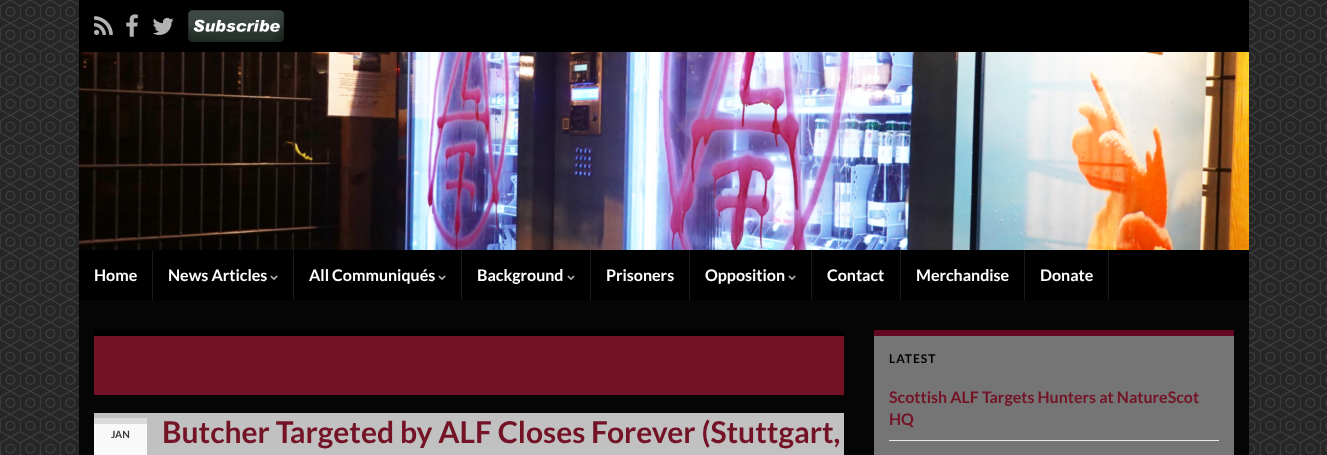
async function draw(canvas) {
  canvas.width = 1327
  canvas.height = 455
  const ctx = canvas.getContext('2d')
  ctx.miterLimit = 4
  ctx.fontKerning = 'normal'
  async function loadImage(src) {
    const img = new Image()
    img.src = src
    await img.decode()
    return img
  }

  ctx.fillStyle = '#fff'
  ctx.fillRect(0, 0, 1327, 455)
  ctx.drawImage(await loadImage('image0.png'), 0, 0, 1327, 455)
  ctx.fillStyle = '#000'
  ctx.fillRect(79, 0, 1170, 52)
  ctx.drawImage(await loadImage('image1.png'), 94, 16, 19, 19)
  ctx.drawImage(await loadImage('image2.png'), 126, 14, 12, 23)
  ctx.drawImage(await loadImage('image3.png'), 152, 17, 22, 18)
  ctx.drawImage(await loadImage('image4.png'), 188, 10, 96, 32)
  ctx.drawImage(await loadImage('image5.png'), 79, 52, 1170, 198)
  ctx.fillRect(79, 250, 1170, 50)
  ctx.fillStyle = '#1a1a1a'
  ctx.fillRect(152, 250, 1, 50)
  ctx.font = 'bold 16px Lato'
  ctx.fillStyle = '#fff'
  ctx.fillText('Home', 94, 281)
  ctx.fillStyle = '#1a1a1a'
  ctx.fillRect(293, 250, 1, 50)
  ctx.fillStyle = '#fff'
  ctx.fillText('News Articles', 168, 281)
  ctx.drawImage(await loadImage('image6.png'), 270, 275, 8, 5)
  ctx.fillStyle = '#1a1a1a'
  ctx.fillRect(461, 250, 1, 50)
  ctx.fillStyle = '#fff'
  ctx.fillText('All Communiqués', 309, 281)
  ctx.drawImage(await loadImage('image6.png'), 438, 275, 8, 5)
  ctx.fillStyle = '#1a1a1a'
  ctx.fillRect(590, 250, 1, 50)
  ctx.fillStyle = '#fff'
  ctx.fillText('Background', 477, 281)
  ctx.drawImage(await loadImage('image6.png'), 567, 275, 8, 5)
  ctx.fillStyle = '#1a1a1a'
  ctx.fillRect(689, 250, 1, 50)
  ctx.fillStyle = '#fff'
  ctx.fillText('Prisoners', 606, 281)
  ctx.fillStyle = '#1a1a1a'
  ctx.fillRect(811, 250, 1, 50)
  ctx.fillStyle = '#fff'
  ctx.fillText('Opposition', 705, 281)
  ctx.drawImage(await loadImage('image6.png'), 788, 275, 8, 5)
  ctx.fillStyle = '#1a1a1a'
  ctx.fillRect(900, 250, 1, 50)
  ctx.fillStyle = '#fff'
  ctx.fillText('Contact', 827, 281)
  ctx.fillStyle = '#1a1a1a'
  ctx.fillRect(1024, 250, 1, 50)
  ctx.fillStyle = '#fff'
  ctx.fillText('Merchandise', 916, 281)
  ctx.fillStyle = '#1a1a1a'
  ctx.fillRect(1108, 250, 1, 50)
  ctx.fillStyle = '#fff'
  ctx.fillText('Donate', 1040, 281)
  ctx.fillStyle = '#050505'
  ctx.fillRect(79, 300, 1170, 155)
  ctx.fillStyle = '#757575'
  ctx.fillRect(874, 336, 360, 119)
  ctx.fillStyle = '#640822'
  ctx.fillRect(874, 330, 360, 6)
  ctx.letterSpacing = '1px'
  ctx.font = 'bold 12px Lato'
  ctx.fillStyle = '#000'
  ctx.fillText('LATEST', 889, 363)
  ctx.fillStyle = '#e9e9e9'
  ctx.fillRect(889, 440, 330, 1)
  ctx.letterSpacing = '0px'
  ctx.font = 'bold 16px Lato'
  ctx.fillStyle = '#741326'
  ctx.fillText('Scottish ALF Targets Hunters at NatureScot', 889, 403)
  ctx.fillText('HQ', 889, 425)
  ctx.fillRect(94, 336, 750, 59)
  ctx.fillStyle = '#000'
  ctx.fillRect(94, 330, 750, 6)
  ctx.fillStyle = '#c1c1c1'
  ctx.fillRect(94, 413, 750, 42)
  ctx.fillStyle = '#f9f9f9'
  ctx.fillRect(94, 424, 53, 31)
  ctx.fillStyle = '#dbdbdb'
  ctx.fillRect(94, 418, 53, 6)
  ctx.font = 'bold 10px Lato'
  ctx.fillStyle = '#3b383d'
  ctx.fillText('JAN', 111, 438)
  ctx.font = 'bold 30px Lato'
  ctx.fillStyle = '#741326'
  ctx.fillText('Butcher Targeted by ALF Closes Forever (Stuttgart,', 162, 443)
}

draw(document.querySelector('canvas'))
